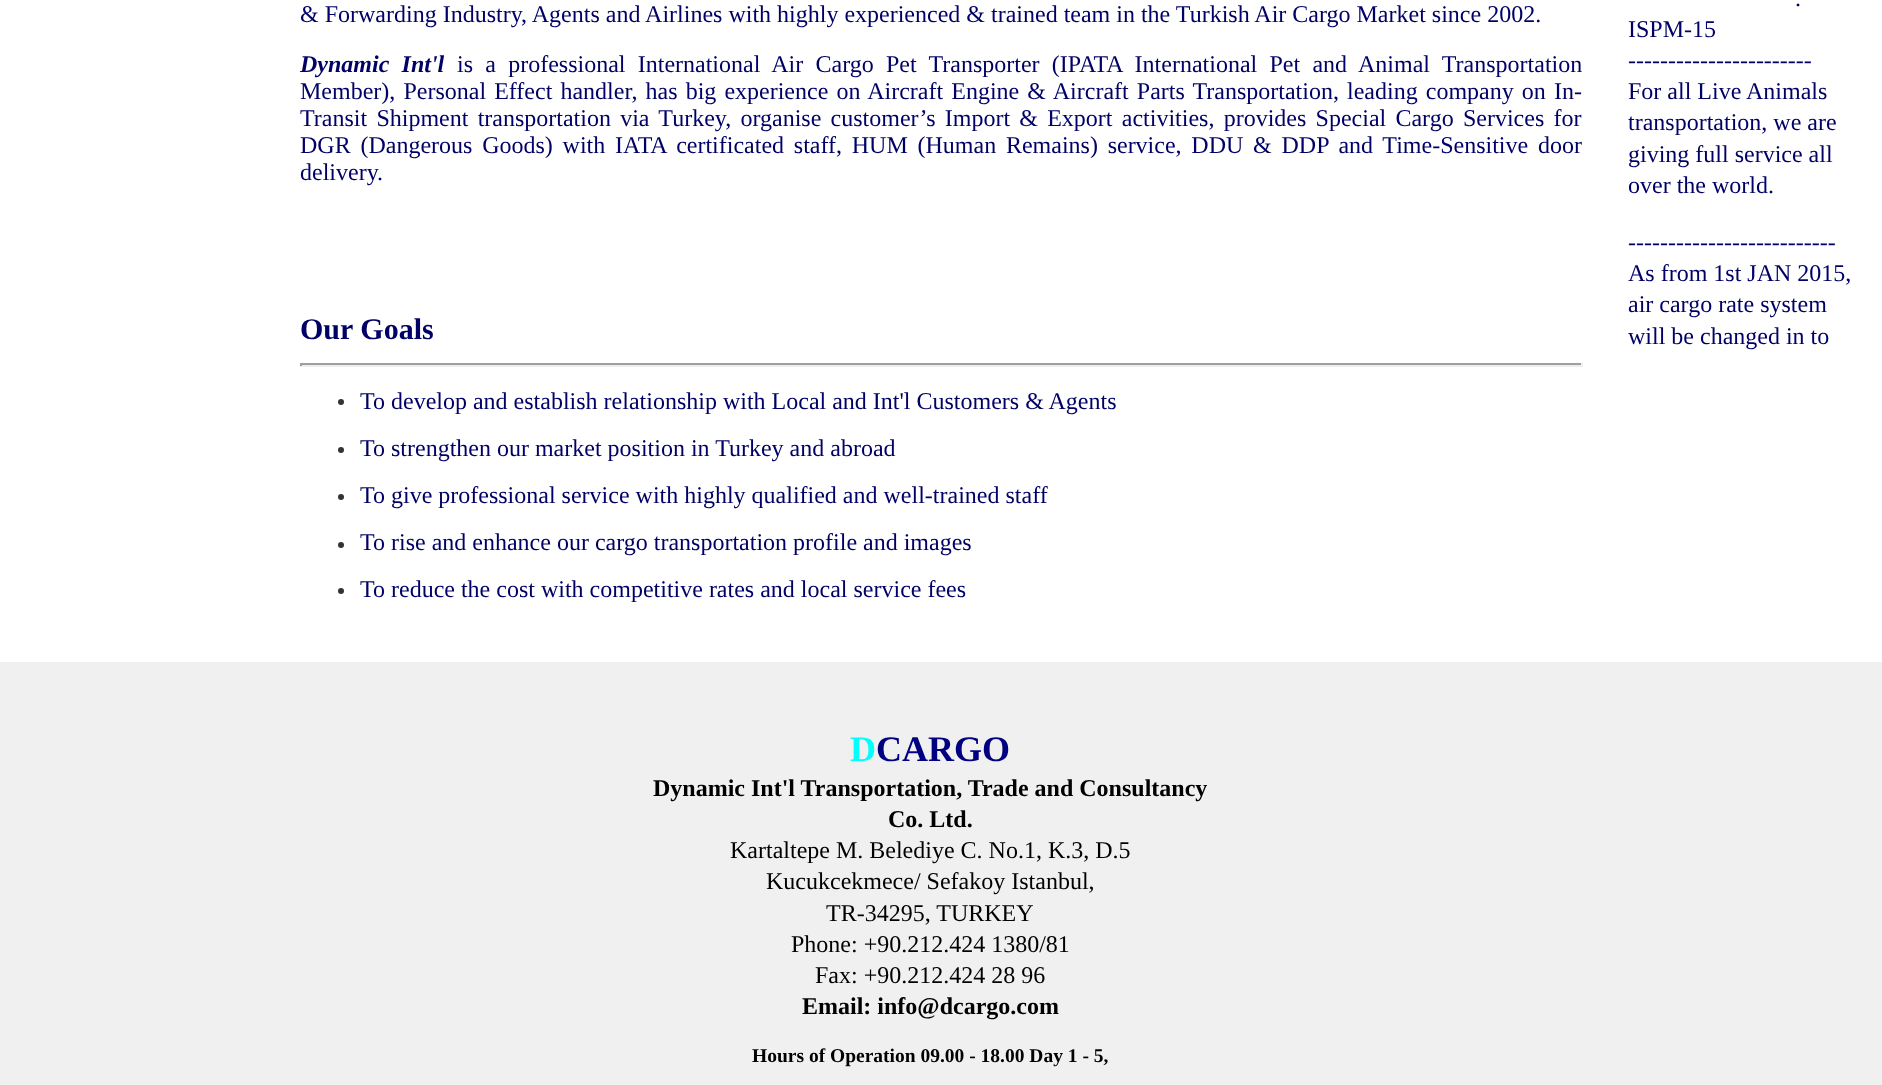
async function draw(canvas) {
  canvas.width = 1882
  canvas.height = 1085
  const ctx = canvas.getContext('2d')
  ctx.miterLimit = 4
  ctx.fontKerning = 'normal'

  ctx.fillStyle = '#fff'
  ctx.fillRect(0, 0, 1882, 1085)
  ctx.font = '24px Liberation Serif'
  ctx.fillStyle = '#006'
  ctx.fillText('& Forwarding Industry, Agents and Airlines with highly experienced & trained team in the Turkish Air Cargo Market since 2002.', 300, 22)
  ctx.wordSpacing = '6.25px'
  ctx.font = 'italic bold 24px Liberation Serif'
  ctx.fillText('Dynamic Int\'l', 300, 72)
  ctx.font = '24px Liberation Serif'
  ctx.fillText('is a professional International Air Cargo Pet Transporter (IPATA International Pet and Animal Transportation', 457, 72)
  ctx.wordSpacing = '2.1px'
  ctx.fillText('Member), Personal Effect handler, has big experience on Aircraft Engine & Aircraft Parts Transportation, leading company on In-', 300, 99)
  ctx.wordSpacing = '3.25px'
  ctx.fillText('Transit Shipment transportation via Turkey, organise customer’s Import & Export activities, provides Special Cargo Services for', 300, 126)
  ctx.wordSpacing = '3.75px'
  ctx.fillText('DGR (Dangerous Goods) with IATA certificated staff, HUM (Human Remains) service, DDU & DDP and Time-Sensitive door', 300, 153)
  ctx.wordSpacing = '0px'
  ctx.fillText('delivery.', 300, 180)
  ctx.font = 'bold 30px Liberation Serif'
  ctx.fillText('Our Goals', 300, 339)
  ctx.fillStyle = '#9f9f9f'
  ctx.fillRect(300, 363, 1283, 2)
  ctx.fillStyle = '#eee'
  ctx.fillRect(1581, 363, 2, 3)
  ctx.fillRect(300, 365, 1283, 2)
  ctx.fillStyle = '#9f9f9f'
  ctx.fillRect(300, 363, 2, 3)
  ctx.fillStyle = '#333'
  ctx.beginPath()
  ctx.arc(341, 402, 3, 0, 2 * Math.PI)
  ctx.fill()
  ctx.font = '24px Liberation Serif'
  ctx.fillStyle = '#006'
  ctx.fillText('To develop and establish relationship with Local and Int\'l Customers & Agents', 360, 409)
  ctx.fillStyle = '#333'
  ctx.beginPath()
  ctx.arc(341, 450, 3, 0, 2 * Math.PI)
  ctx.fill()
  ctx.fillStyle = '#006'
  ctx.fillText('To strengthen our market position in Turkey and abroad', 360, 456)
  ctx.fillStyle = '#333'
  ctx.beginPath()
  ctx.arc(341, 497, 3, 0, 2 * Math.PI)
  ctx.fill()
  ctx.fillStyle = '#006'
  ctx.fillText('To give professional service with highly qualified and well-trained staff', 360, 503)
  ctx.fillStyle = '#333'
  ctx.beginPath()
  ctx.arc(341, 545, 3, 0, 2 * Math.PI)
  ctx.fill()
  ctx.fillStyle = '#006'
  ctx.fillText('To rise and enhance our cargo transportation profile and images', 360, 550)
  ctx.fillStyle = '#333'
  ctx.beginPath()
  ctx.arc(341, 591, 3, 0, 2 * Math.PI)
  ctx.fill()
  ctx.fillStyle = '#006'
  ctx.fillText('To reduce the cost with competitive rates and local service fees', 360, 597)
  ctx.fillText('.', 1795, 6)
  ctx.fillText('ISPM-15', 1628, 37)
  ctx.fillText('-----------------------', 1628, 68)
  ctx.fillText('For all Live Animals', 1628, 99)
  ctx.fillText('transportation, we are', 1628, 130)
  ctx.fillText('giving full service all', 1628, 162)
  ctx.fillText('over the world.', 1628, 193)
  ctx.fillText('--------------------------', 1628, 250)
  ctx.fillText('As from 1st JAN 2015,', 1628, 281)
  ctx.fillText('air cargo rate system', 1628, 312)
  ctx.fillText('will be changed in to', 1628, 344)
  ctx.fillStyle = '#f0f0f0'
  ctx.fillRect(0, 662, 1882, 423)
  ctx.font = 'bold 36px Liberation Serif'
  ctx.fillStyle = '#0ff'
  ctx.fillText('D', 850, 761)
  ctx.fillStyle = '#000080'
  ctx.fillText('CARGO', 876, 761)
  ctx.font = 'bold 24px Liberation Serif'
  ctx.fillStyle = '#000'
  ctx.fillText('Dynamic Int\'l Transportation, Trade and Consultancy', 653, 796)
  ctx.fillText('Co. Ltd.', 888, 827)
  ctx.font = '24px Liberation Serif'
  ctx.fillText('Kartaltepe M. Belediye C. No.1, K.3, D.5', 730, 858)
  ctx.fillText('Kucukcekmece/ Sefakoy Istanbul,', 766, 889)
  ctx.fillText('TR-34295, TURKEY', 826, 921)
  ctx.fillText('Phone: +90.212.424 1380/81', 791, 952)
  ctx.fillText('Fax: +90.212.424 28 96', 815, 983)
  ctx.font = 'bold 24px Liberation Serif'
  ctx.fillText('Email: info@dcargo.com', 802, 1014)
  ctx.font = 'bold 19.5px Liberation Serif'
  ctx.fillText('Hours of Operation 09.00 - 18.00 Day 1 - 5,', 752, 1062)
}

draw(document.querySelector('canvas'))
